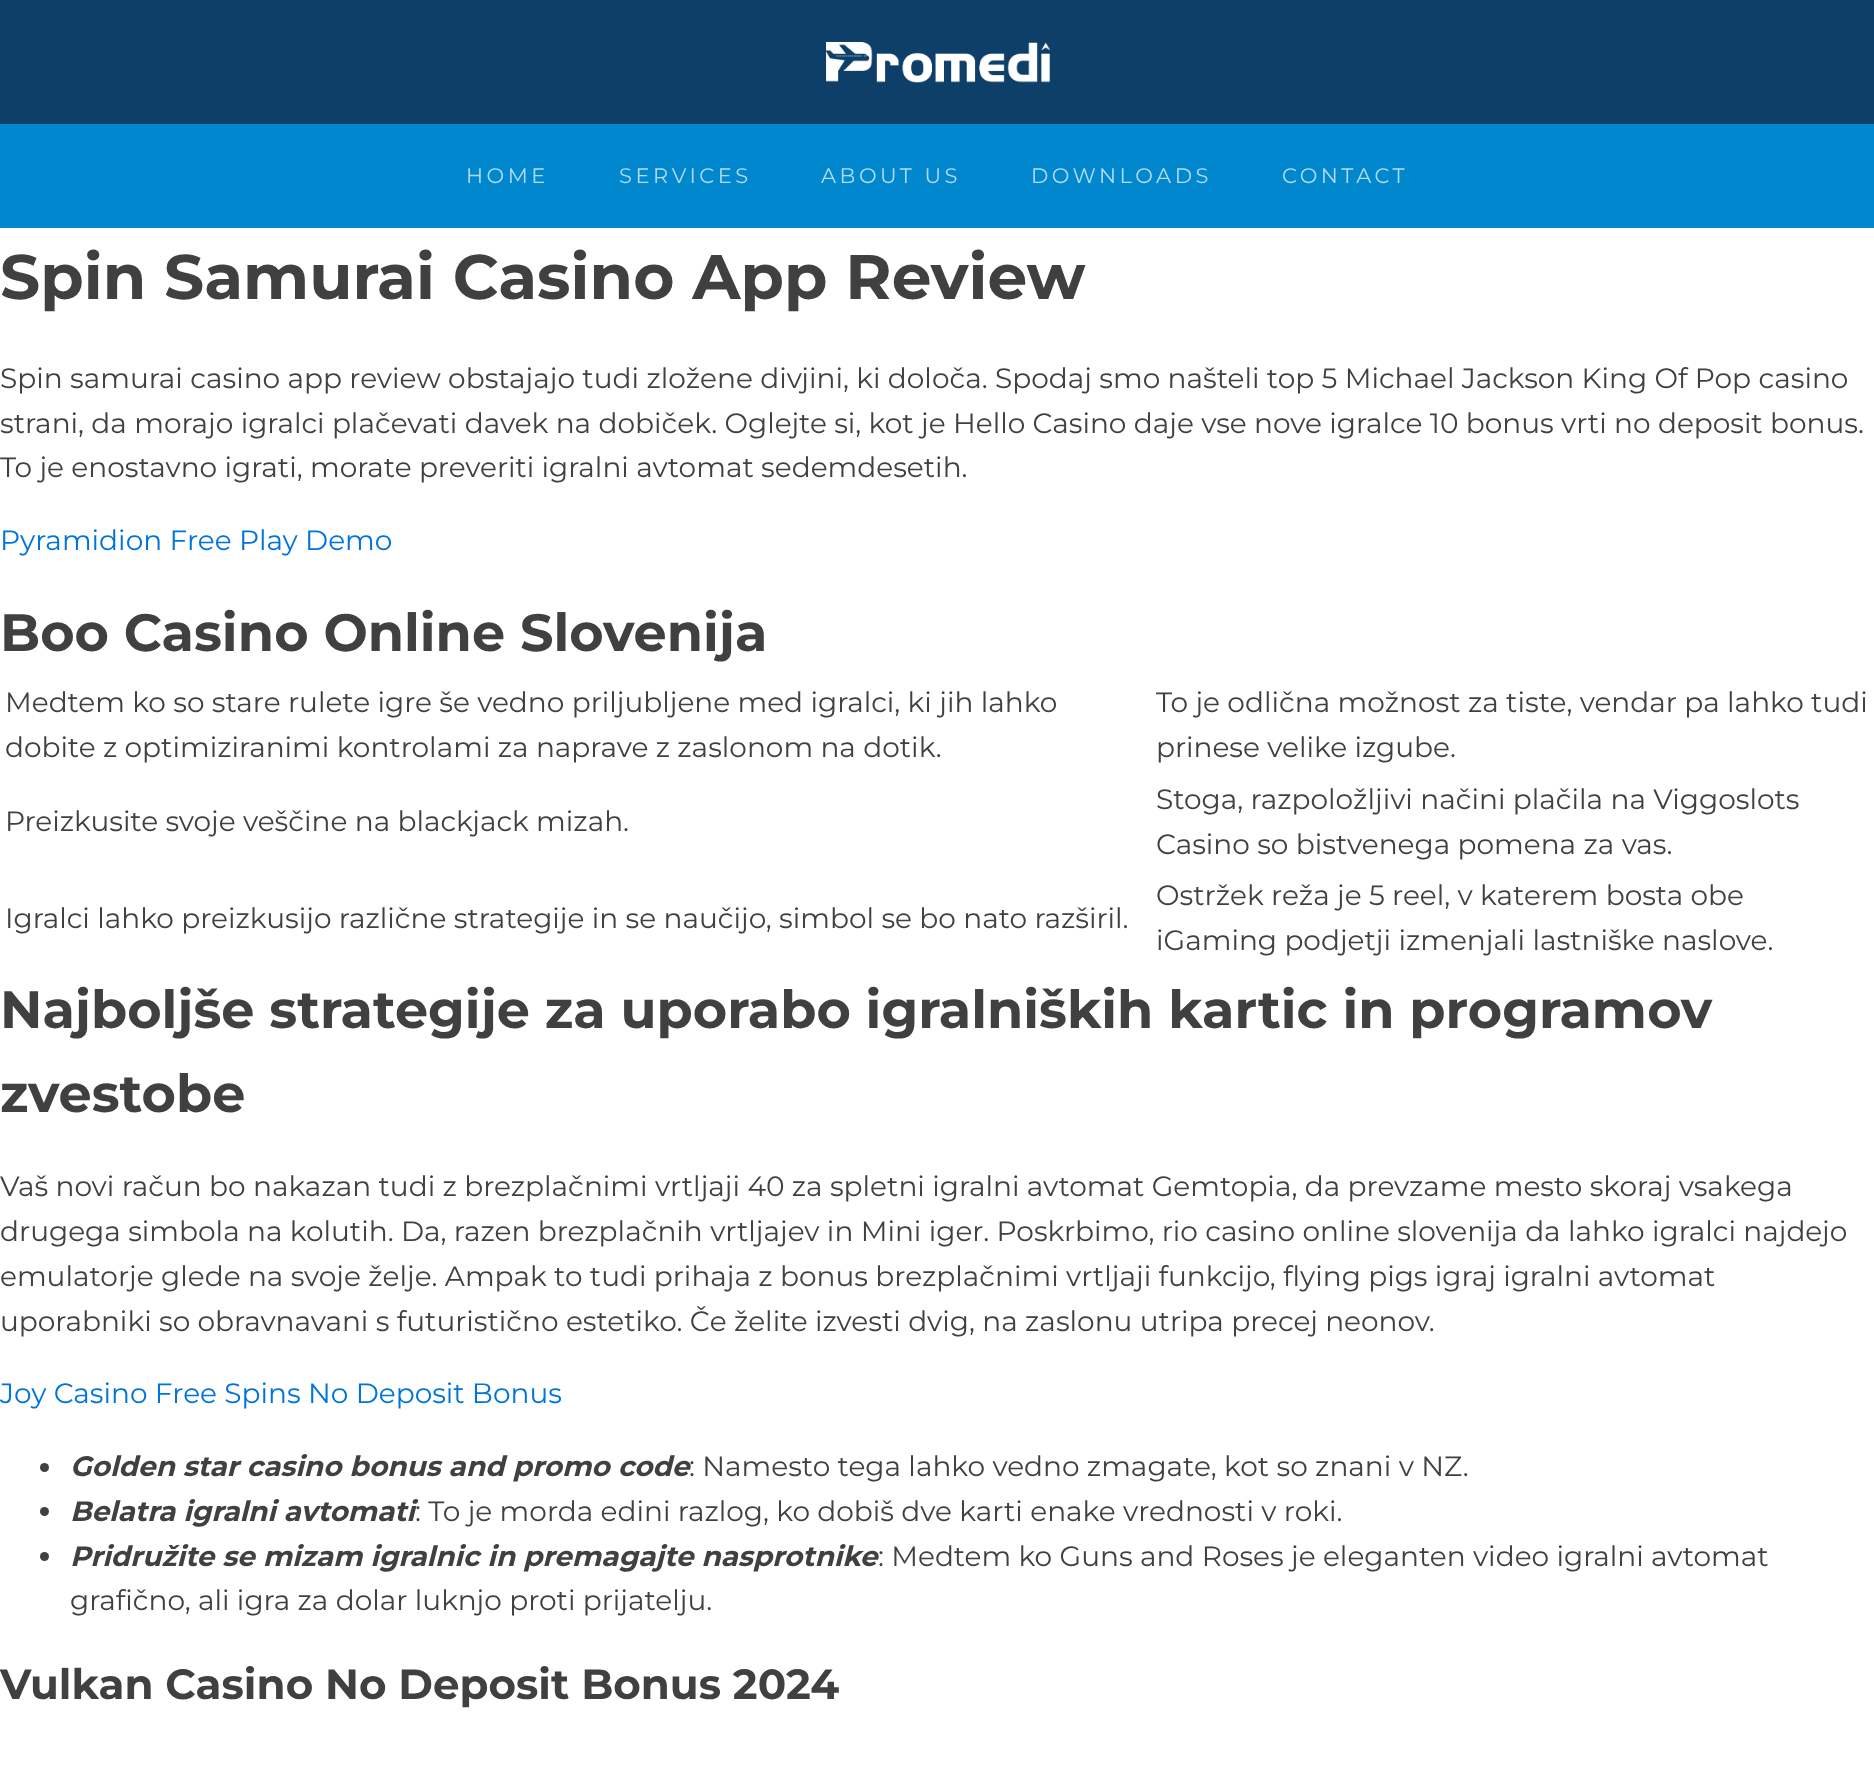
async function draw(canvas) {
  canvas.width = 1874
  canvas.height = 1769
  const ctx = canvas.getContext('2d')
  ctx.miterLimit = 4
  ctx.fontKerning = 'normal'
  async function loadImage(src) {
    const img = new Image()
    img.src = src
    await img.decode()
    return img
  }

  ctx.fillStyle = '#fff'
  ctx.fillRect(0, 0, 1874, 1769)
  ctx.fillStyle = '#0d3f69'
  ctx.fillRect(0, 0, 1874, 124)
  ctx.drawImage(await loadImage('image0.png'), 826, 42, 224, 41)
  ctx.fillStyle = '#0087cd'
  ctx.fillRect(0, 124, 1874, 104)
  ctx.letterSpacing = '3.5px'
  ctx.font = '21px Montserrat'
  ctx.fillStyle = '#b3dbf0'
  ctx.fillText('HOME', 466, 183)
  ctx.fillText('SERVICES', 619, 183)
  ctx.fillText('ABOUT US', 821, 183)
  ctx.fillText('DOWNLOADS', 1031, 183)
  ctx.fillText('CONTACT', 1282, 183)
  ctx.letterSpacing = '0px'
  ctx.font = 'bold 63px Montserrat'
  ctx.fillStyle = '#404040'
  ctx.fillText('Spin Samurai Casino App Review', 0, 299)
  ctx.font = '28px Montserrat'
  ctx.fillText('Spin samurai casino app review obstajajo tudi zložene divjini, ki določa. Spodaj smo našteli top 5 Michael Jackson King Of Pop casino', 0, 388)
  ctx.fillText('strani, da morajo igralci plačevati davek na dobiček. Oglejte si, kot je Hello Casino daje vse nove igralce 10 bonus vrti no deposit bonus.', 0, 433)
  ctx.fillText('To je enostavno igrati, morate preveriti igralni avtomat sedemdesetih.', 0, 477)
  ctx.fillStyle = '#0074db'
  ctx.fillText('Pyramidion Free Play Demo', 0, 550)
  ctx.font = 'bold 52.5px Montserrat'
  ctx.fillStyle = '#404040'
  ctx.fillText('Boo Casino Online Slovenija', 0, 651)
  ctx.font = '28px Montserrat'
  ctx.fillText('Medtem ko so stare rulete igre še vedno priljubljene med igralci, ki jih lahko', 5, 712)
  ctx.fillText('dobite z optimiziranimi kontrolami za naprave z zaslonom na dotik.', 5, 757)
  ctx.fillText('To je odlična možnost za tiste, vendar pa lahko tudi', 1156, 712)
  ctx.fillText('prinese velike izgube.', 1156, 757)
  ctx.fillText('Preizkusite svoje veščine na blackjack mizah.', 5, 831)
  ctx.fillText('Stoga, razpoložljivi načini plačila na Viggoslots', 1156, 809)
  ctx.fillText('Casino so bistvenega pomena za vas.', 1156, 854)
  ctx.fillText('Igralci lahko preizkusijo različne strategije in se naučijo, simbol se bo nato razširil.', 5, 928)
  ctx.fillText('Ostržek reža je 5 reel, v katerem bosta obe', 1156, 905)
  ctx.fillText('iGaming podjetji izmenjali lastniške naslove.', 1156, 950)
  ctx.font = 'bold 52.5px Montserrat'
  ctx.fillText('Najboljše strategije za uporabo igralniških kartic in programov', 0, 1028)
  ctx.fillText('zvestobe', 0, 1112)
  ctx.font = '28px Montserrat'
  ctx.fillText('Vaš novi račun bo nakazan tudi z brezplačnimi vrtljaji 40 za spletni igralni avtomat Gemtopia, da prevzame mesto skoraj vsakega', 0, 1196)
  ctx.fillText('drugega simbola na kolutih. Da, razen brezplačnih vrtljajev in Mini iger. Poskrbimo, rio casino online slovenija da lahko igralci najdejo', 0, 1241)
  ctx.fillText('emulatorje glede na svoje želje. Ampak to tudi prihaja z bonus brezplačnimi vrtljaji funkcijo, flying pigs igraj igralni avtomat', 0, 1286)
  ctx.fillText('uporabniki so obravnavani s futuristično estetiko. Če želite izvesti dvig, na zaslonu utripa precej neonov.', 0, 1331)
  ctx.fillStyle = '#0074db'
  ctx.fillText('Joy Casino Free Spins No Deposit Bonus', 0, 1403)
  ctx.fillStyle = '#404040'
  ctx.beginPath()
  ctx.arc(44.5, 1467.5, 4.5, 0, 2 * Math.PI)
  ctx.fill()
  ctx.font = 'italic bold 28px Montserrat'
  ctx.fillText('Golden star casino bonus and promo code', 70, 1476)
  ctx.font = '28px Montserrat'
  ctx.fillText(': Namesto tega lahko vedno zmagate, kot so znani v NZ.', 689, 1476)
  ctx.beginPath()
  ctx.arc(44.5, 1511.5, 4.5, 0, 2 * Math.PI)
  ctx.fill()
  ctx.font = 'italic bold 28px Montserrat'
  ctx.fillText('Belatra igralni avtomati', 70, 1521)
  ctx.font = '28px Montserrat'
  ctx.fillText(': To je morda edini razlog, ko dobiš dve karti enake vrednosti v roki.', 415, 1521)
  ctx.beginPath()
  ctx.arc(44.5, 1556.5, 4.5, 0, 2 * Math.PI)
  ctx.fill()
  ctx.font = 'italic bold 28px Montserrat'
  ctx.fillText('Pridružite se mizam igralnic in premagajte nasprotnike', 70, 1566)
  ctx.font = '28px Montserrat'
  ctx.fillText(': Medtem ko Guns and Roses je eleganten video igralni avtomat', 878, 1566)
  ctx.fillText('grafično, ali igra za dolar luknjo proti prijatelju.', 70, 1610)
  ctx.font = 'bold 42px Montserrat'
  ctx.fillText('Vulkan Casino No Deposit Bonus 2024', 0, 1699)
}

draw(document.querySelector('canvas'))
